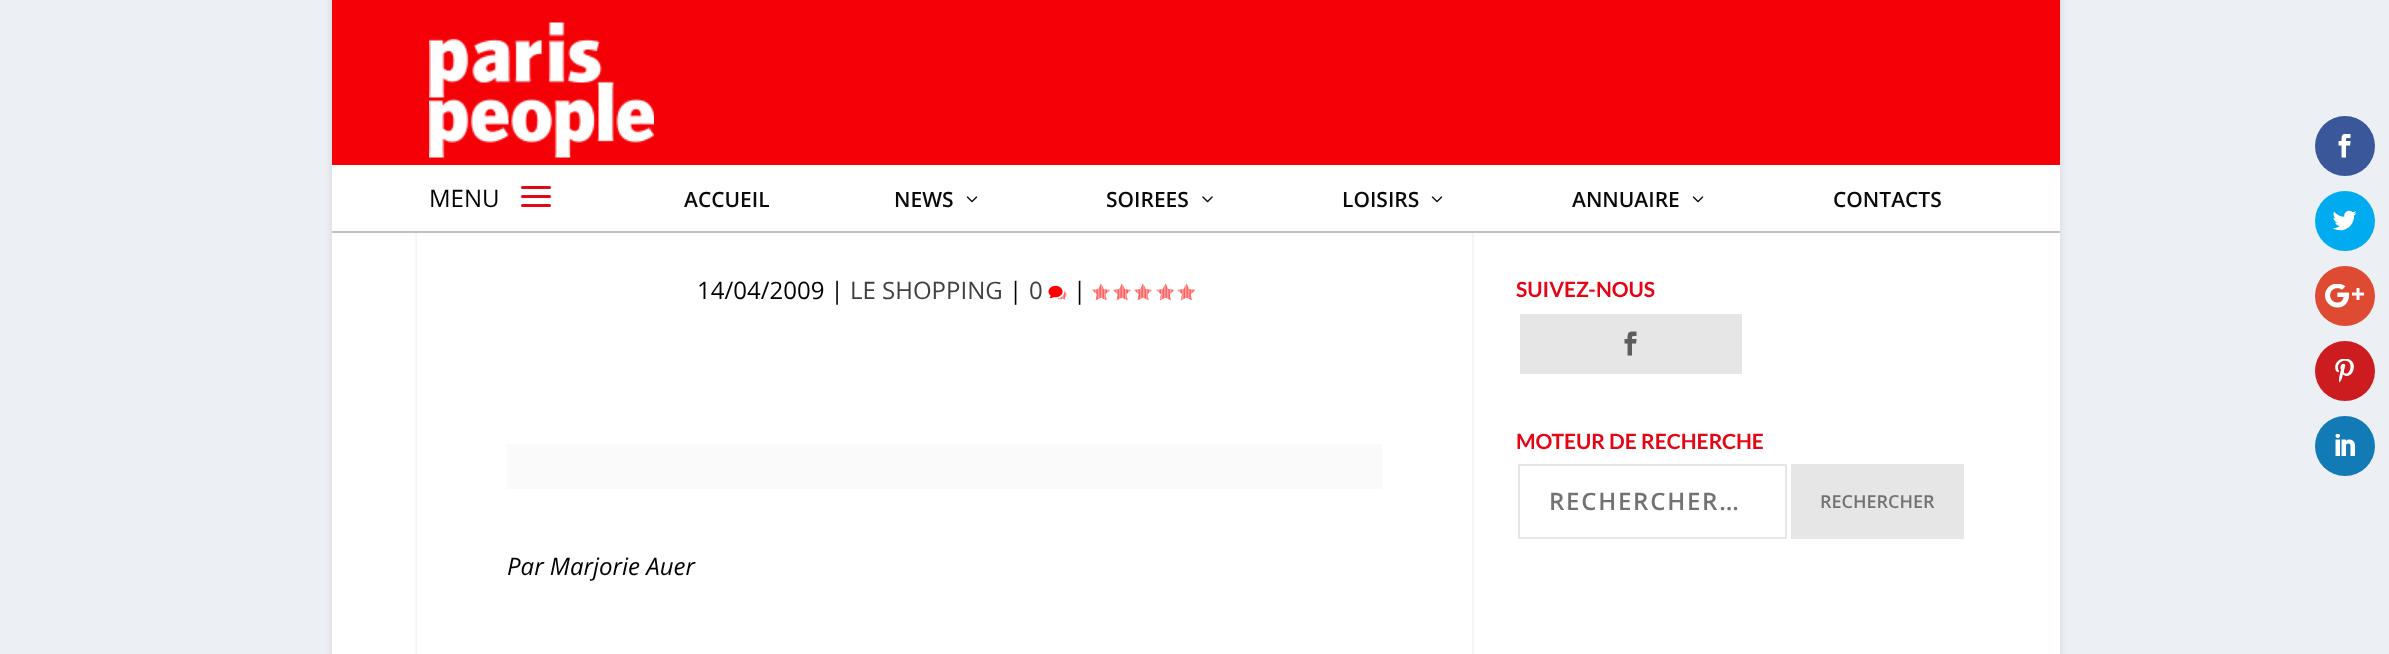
async function draw(canvas) {
  canvas.width = 2389
  canvas.height = 654
  const ctx = canvas.getContext('2d')
  ctx.miterLimit = 4
  ctx.fontKerning = 'normal'
  async function loadImage(src) {
    const img = new Image()
    img.src = src
    await img.decode()
    return img
  }

  ctx.fillStyle = '#ecf0f5'
  ctx.fillRect(0, 0, 2389, 654)
  ctx.fillStyle = '#0000001a'
  ctx.filter = 'blur(4.5px)'
  ctx.beginPath()
  ctx.rect(332, -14, 1728, 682)
  ctx.fill()
  ctx.filter = 'none'
  ctx.fillStyle = '#fff'
  ctx.fillRect(332, 233, 1728, 421)
  ctx.fillStyle = '#0000001a'
  ctx.filter = 'blur(2px)'
  ctx.beginPath()
  ctx.roundRect(417, 116, 1055, 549, 5)
  ctx.fill()
  ctx.filter = 'none'
  ctx.fillStyle = '#f60008'
  ctx.fillRect(332, 0, 1728, 165)
  ctx.drawImage(await loadImage('image0.png'), 429, 22, 225, 136)
  ctx.fillStyle = '#fff'
  ctx.fillRect(332, 165, 1728, 66)
  ctx.fillStyle = '#c0c0c0'
  ctx.fillRect(332, 231, 1728, 2)
  ctx.font = '24px Open Sans'
  ctx.fillStyle = '#000'
  ctx.fillText('MENU', 429, 207)
  ctx.fillStyle = '#e50515'
  ctx.beginPath()
  ctx.roundRect(521, 186, 30, 3, 1.5)
  ctx.fill()
  ctx.beginPath()
  ctx.roundRect(521, 195, 30, 3, 1.5)
  ctx.fill()
  ctx.beginPath()
  ctx.roundRect(521, 204, 30, 3, 1.5)
  ctx.fill()
  ctx.font = '600 21px Open Sans'
  ctx.fillStyle = '#0a0a0a'
  ctx.fillText('ACCUEIL', 684, 207)
  ctx.fillText('NEWS', 894, 207)
  ctx.drawImage(await loadImage('image1.png'), 966, 196, 12, 7)
  ctx.fillText('SOIREES', 1106, 207)
  ctx.drawImage(await loadImage('image2.png'), 1202, 196, 11, 7)
  ctx.fillText('LOISIRS', 1342, 207)
  ctx.drawImage(await loadImage('image1.png'), 1431, 196, 12, 7)
  ctx.fillText('ANNUAIRE', 1572, 207)
  ctx.drawImage(await loadImage('image1.png'), 1692, 196, 12, 7)
  ctx.fillText('CONTACTS', 1833, 207)
  ctx.fillStyle = '#fff'
  ctx.fillRect(417, 233, 1055, 421)
  ctx.font = '24px Open Sans'
  ctx.fillStyle = '#000'
  ctx.fillText('14/04/2009 |', 697, 299)
  ctx.fillStyle = '#404040'
  ctx.fillText('LE SHOPPING', 850, 299)
  ctx.fillStyle = '#000'
  ctx.fillText('|', 1009, 299)
  ctx.fillStyle = '#404040'
  ctx.fillText('0', 1029, 299)
  ctx.drawImage(await loadImage('image3.png'), 1048, 285, 19, 15)
  ctx.fillStyle = '#000'
  ctx.fillText('|', 1073, 299)
  ctx.drawImage(await loadImage('image4.png'), 1092, 283, 18, 18)
  ctx.drawImage(await loadImage('image4.png'), 1113, 283, 18, 18)
  ctx.drawImage(await loadImage('image4.png'), 1134, 283, 18, 18)
  ctx.drawImage(await loadImage('image5.png'), 1156, 283, 19, 18)
  ctx.drawImage(await loadImage('image5.png'), 1177, 283, 19, 18)
  ctx.fillStyle = '#fafafa'
  ctx.fillRect(507, 444, 875, 45)
  ctx.font = 'italic 24px Open Sans'
  ctx.fillStyle = '#000'
  ctx.fillText('Par Marjorie Auer', 507, 575)
  ctx.font = 'bold 21px Lato'
  ctx.fillStyle = '#e50515'
  ctx.fillText('SUIVEZ-NOUS', 1516, 297)
  ctx.fillStyle = '#e6e6e6'
  ctx.fillRect(1520, 314, 222, 60)
  ctx.drawImage(await loadImage('image6.png'), 1624, 331, 13, 25)
  ctx.fillStyle = '#e50515'
  ctx.fillText('MOTEUR DE RECHERCHE', 1516, 449)
  ctx.strokeStyle = '#e6e6e6'
  ctx.lineWidth = 2
  ctx.strokeRect(1519, 465, 267, 73)
  ctx.letterSpacing = '1.75px'
  ctx.font = '600 24px Open Sans'
  ctx.fillStyle = '#727272'
  ctx.fillText('RECHERCHER…', 1549, 510)
  ctx.fillStyle = '#e6e6e6'
  ctx.fillRect(1791, 464, 173, 75)
  ctx.letterSpacing = '0px'
  ctx.font = '600 18px Open Sans'
  ctx.fillStyle = '#727272'
  ctx.fillText('RECHERCHER', 1820, 508)
  ctx.fillStyle = '#3a579a'
  ctx.beginPath()
  ctx.arc(2345, 146, 30, 0, 2 * Math.PI)
  ctx.fill()
  ctx.drawImage(await loadImage('image7.png'), 2338, 134, 13, 24)
  ctx.fillStyle = '#00abf0'
  ctx.beginPath()
  ctx.arc(2345, 221, 30, 0, 2 * Math.PI)
  ctx.fill()
  ctx.drawImage(await loadImage('image8.png'), 2332, 210, 25, 21)
  ctx.fillStyle = '#df4a32'
  ctx.beginPath()
  ctx.arc(2345, 296, 30, 0, 2 * Math.PI)
  ctx.fill()
  ctx.drawImage(await loadImage('image9.png'), 2325, 284, 39, 24)
  ctx.fillStyle = '#cd1c1f'
  ctx.beginPath()
  ctx.arc(2345, 371, 30, 0, 2 * Math.PI)
  ctx.fill()
  ctx.drawImage(await loadImage('image10.png'), 2335, 359, 19, 24)
  ctx.fillStyle = '#127bb6'
  ctx.beginPath()
  ctx.arc(2345, 446, 30, 0, 2 * Math.PI)
  ctx.fill()
  ctx.drawImage(await loadImage('image11.png'), 2335, 434, 20, 22)
}

draw(document.querySelector('canvas'))
